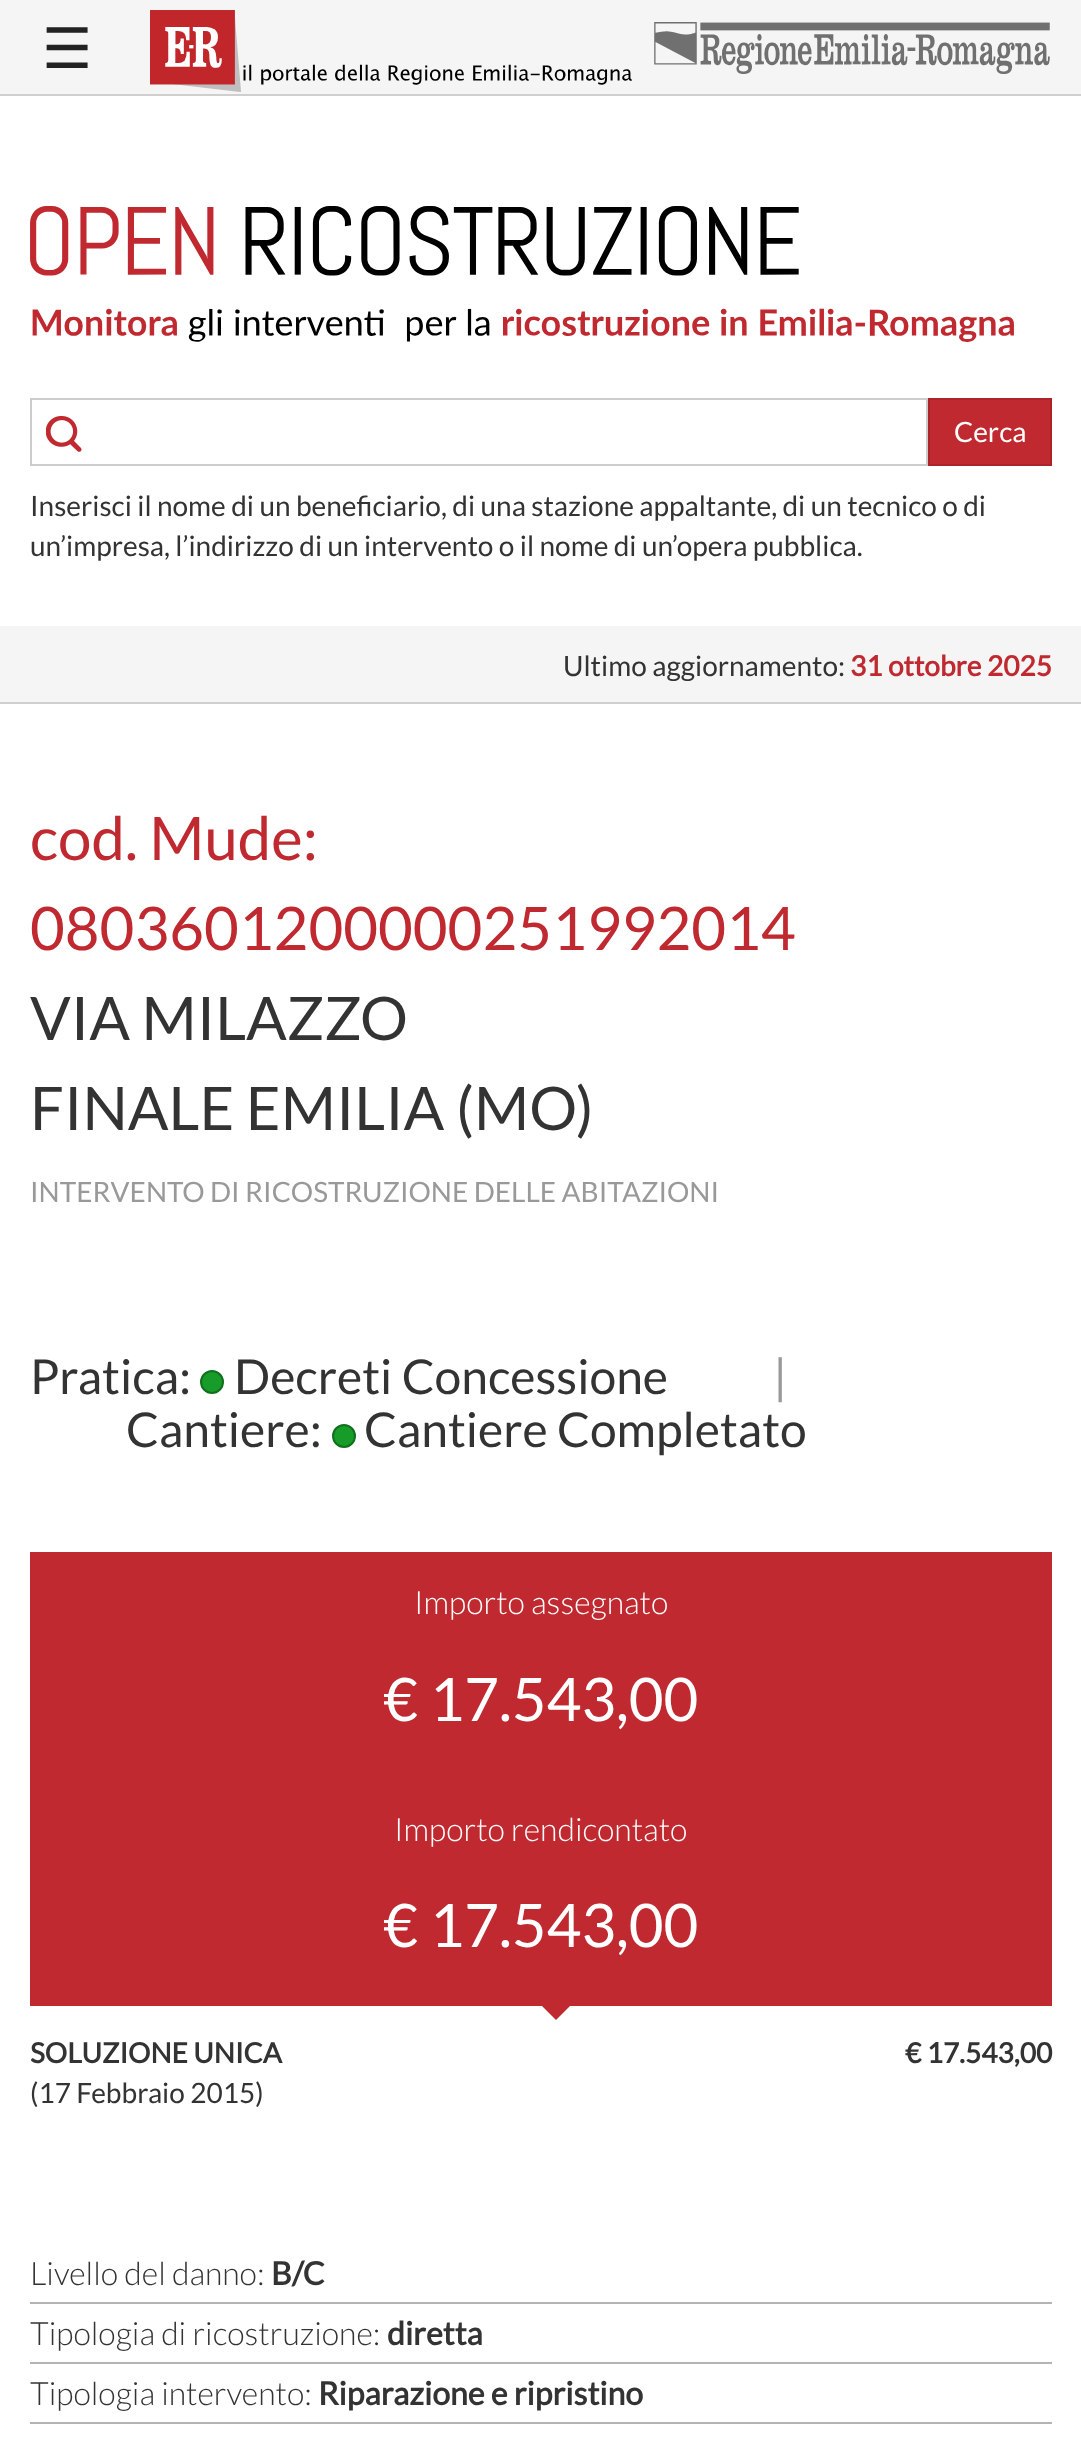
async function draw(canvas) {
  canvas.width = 1081
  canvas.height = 2457
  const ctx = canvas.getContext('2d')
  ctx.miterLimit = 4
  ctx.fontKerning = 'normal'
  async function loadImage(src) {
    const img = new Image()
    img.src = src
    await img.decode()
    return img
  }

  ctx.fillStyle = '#f5f5f5'
  ctx.fillRect(0, 0, 1081, 2457)
  ctx.font = '56px DejaVu Sans'
  ctx.fillStyle = '#222'
  ctx.fillText('☰', 42, 68)
  ctx.drawImage(await loadImage('image0.png'), 150, 10, 482, 82)
  ctx.drawImage(await loadImage('image1.png'), 654, 22, 396, 52)
  ctx.fillStyle = '#fff'
  ctx.fillRect(0, 96, 1081, 530)
  ctx.fillStyle = '#cfcfcf'
  ctx.fillRect(0, 94, 1081, 2)
  ctx.drawImage(await loadImage('image2.png'), 30, 206, 984, 136)
  ctx.strokeStyle = '#ccc'
  ctx.lineWidth = 2
  ctx.strokeRect(31, 399, 896, 66)
  ctx.drawImage(await loadImage('image3.png'), 46, 416, 36, 36)
  ctx.fillStyle = '#bf292f'
  ctx.beginPath()
  ctx.rect(929, 399, 122, 66)
  ctx.fill()
  ctx.strokeStyle = '#aa242a'
  ctx.stroke()
  ctx.font = '28px Lato'
  ctx.fillStyle = '#fff'
  ctx.fillText('Cerca', 954, 442)
  ctx.fillStyle = '#333'
  ctx.fillText('Inserisci il nome di un beneficiario, di una stazione appaltante, di un tecnico o di', 30, 516)
  ctx.fillText('un’impresa, l’indirizzo di un intervento o il nome di un’opera pubblica.', 30, 556)
  ctx.fillText('Ultimo aggiornamento:', 563, 676)
  ctx.font = 'bold 28px Lato'
  ctx.fillStyle = '#bf292f'
  ctx.fillText('31 ottobre 2025', 850, 676)
  ctx.fillStyle = '#fff'
  ctx.fillRect(0, 704, 1081, 1753)
  ctx.fillStyle = '#cfcfcf'
  ctx.fillRect(0, 702, 1081, 2)
  ctx.font = '60px Lato'
  ctx.fillStyle = '#bf292f'
  ctx.fillText('cod. Mude:', 30, 860)
  ctx.fillText('0803601200000251992014', 30, 950)
  ctx.fillStyle = '#333'
  ctx.fillText('VIA MILAZZO', 30, 1040)
  ctx.fillText('FINALE EMILIA (MO)', 30, 1130)
  ctx.font = '28px Lato'
  ctx.fillStyle = '#999'
  ctx.fillText('INTERVENTO DI RICOSTRUZIONE DELLE ABITAZIONI', 30, 1202)
  ctx.font = '48px Lato'
  ctx.fillStyle = '#333'
  ctx.fillText('Pratica:', 30, 1394)
  ctx.fillStyle = '#189c29'
  ctx.beginPath()
  ctx.arc(212, 1382, 11, 0, 2 * Math.PI)
  ctx.fill()
  ctx.strokeStyle = '#11701d'
  ctx.stroke()
  ctx.fillStyle = '#333'
  ctx.fillText('Decreti Concessione', 234, 1394)
  ctx.fillStyle = '#999'
  ctx.fillText('|', 773, 1394)
  ctx.fillStyle = '#333'
  ctx.fillText('Cantiere:', 126, 1447)
  ctx.fillStyle = '#189c29'
  ctx.beginPath()
  ctx.arc(344, 1436, 11, 0, 2 * Math.PI)
  ctx.fill()
  ctx.stroke()
  ctx.fillStyle = '#333'
  ctx.fillText('Cantiere Completato', 364, 1447)
  ctx.fillStyle = '#bf292f'
  ctx.fillRect(30, 1552, 1022, 454)
  ctx.font = '300 32px Lato'
  ctx.fillStyle = '#fff'
  ctx.fillText('Importo assegnato', 414, 1614)
  ctx.font = '60px Lato'
  ctx.fillText('€ 17.543,00', 383, 1721)
  ctx.font = '300 32px Lato'
  ctx.fillText('Importo rendicontato', 394, 1841)
  ctx.font = '60px Lato'
  ctx.fillText('€ 17.543,00', 383, 1947)
  ctx.fillStyle = '#bf292f'
  ctx.beginPath()
  ctx.moveTo(542, 2006)
  ctx.lineTo(570, 2006)
  ctx.lineTo(556, 2020)
  ctx.closePath()
  ctx.fill()
  ctx.font = 'bold 28px Lato'
  ctx.fillStyle = '#333'
  ctx.fillText('SOLUZIONE UNICA', 30, 2063)
  ctx.fillText('€ 17.543,00', 905, 2063)
  ctx.font = '28px Lato'
  ctx.fillText('(17 Febbraio 2015)', 30, 2103)
  ctx.fillStyle = '#b4b4b4'
  ctx.fillRect(30, 2302, 1022, 2)
  ctx.font = '300 32px Lato'
  ctx.fillStyle = '#333'
  ctx.fillText('Livello del danno:', 30, 2285)
  ctx.font = 'bold 32px Lato'
  ctx.fillText('B/C', 271, 2285)
  ctx.fillStyle = '#b4b4b4'
  ctx.fillRect(30, 2362, 1022, 2)
  ctx.font = '300 32px Lato'
  ctx.fillStyle = '#333'
  ctx.fillText('Tipologia di ricostruzione:', 30, 2345)
  ctx.font = 'bold 32px Lato'
  ctx.fillText('diretta', 387, 2345)
  ctx.fillStyle = '#b4b4b4'
  ctx.fillRect(30, 2422, 1022, 2)
  ctx.font = '300 32px Lato'
  ctx.fillStyle = '#333'
  ctx.fillText('Tipologia intervento:', 30, 2405)
  ctx.font = 'bold 32px Lato'
  ctx.fillText('Riparazione e ripristino', 318, 2405)
}

draw(document.querySelector('canvas'))
